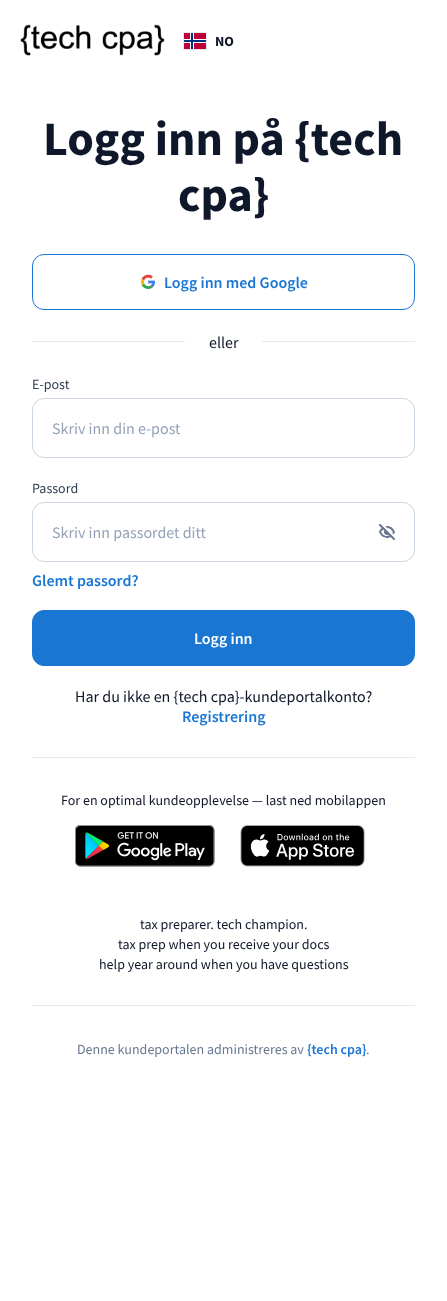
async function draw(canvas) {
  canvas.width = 447
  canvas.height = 1301
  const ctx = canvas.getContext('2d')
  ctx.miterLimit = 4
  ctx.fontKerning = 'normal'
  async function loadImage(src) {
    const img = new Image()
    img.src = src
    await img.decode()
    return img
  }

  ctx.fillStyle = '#fff'
  ctx.fillRect(0, 0, 447, 1301)
  ctx.drawImage(await loadImage('image0.png'), 20, 24, 145, 32)
  ctx.drawImage(await loadImage('image1.png'), 183, 32, 24, 18)
  ctx.font = 'bold 14px Source Sans Pro'
  ctx.fillStyle = '#0f172a'
  ctx.fillText('NO', 215, 46)
  ctx.font = 'bold 48px Source Sans Pro'
  ctx.fillText('Logg inn på {tech', 43, 155)
  ctx.fillText('cpa}', 178, 211)
  ctx.beginPath()
  ctx.roundRect(32.5, 254.5, 382, 55, 11.5)
  ctx.strokeStyle = '#1976d3'
  ctx.stroke()
  ctx.drawImage(await loadImage('image2.png'), 141, 274, 14, 15)
  ctx.font = '600 16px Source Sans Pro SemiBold'
  ctx.fillStyle = '#1976d3'
  ctx.fillText('Logg inn med Google', 164, 288)
  ctx.fillStyle = '#e2e8f0'
  ctx.fillRect(32, 341, 153, 1)
  ctx.font = '16px Source Sans Pro'
  ctx.fillStyle = '#0f172a'
  ctx.fillText('eller', 209, 348)
  ctx.fillStyle = '#e2e8f0'
  ctx.fillRect(262, 341, 153, 1)
  ctx.font = '14px Source Sans Pro'
  ctx.fillStyle = '#334155'
  ctx.fillText('E-post', 32, 389)
  ctx.beginPath()
  ctx.roundRect(32.5, 398.5, 382, 59, 11.5)
  ctx.strokeStyle = '#cbd5e1'
  ctx.stroke()
  ctx.font = '16px Source Sans Pro'
  ctx.fillStyle = '#94a3b8'
  ctx.fillText('Skriv inn din e-post', 52, 434)
  ctx.font = '14px Source Sans Pro'
  ctx.fillStyle = '#334155'
  ctx.fillText('Passord', 32, 493)
  ctx.beginPath()
  ctx.roundRect(32.5, 502.5, 382, 59, 11.5)
  ctx.stroke()
  ctx.font = '16px Source Sans Pro'
  ctx.fillStyle = '#94a3b8'
  ctx.fillText('Skriv inn passordet ditt', 52, 538)
  ctx.drawImage(await loadImage('image3.png'), 379, 524, 16, 16)
  ctx.font = '600 16px Source Sans Pro SemiBold'
  ctx.fillStyle = '#1976d3'
  ctx.fillText('Glemt passord?', 32, 586)
  ctx.beginPath()
  ctx.roundRect(32.5, 610.5, 382, 55, 11.5)
  ctx.fill()
  ctx.strokeStyle = '#1976d3'
  ctx.stroke()
  ctx.fillStyle = '#fff'
  ctx.fillText('Logg inn', 194, 644)
  ctx.font = '16px Source Sans Pro'
  ctx.fillStyle = '#0f172a'
  ctx.fillText('Har du ikke en {tech cpa}-kundeportalkonto?', 75, 702)
  ctx.font = '600 16px Source Sans Pro SemiBold'
  ctx.fillStyle = '#1976d3'
  ctx.fillText('Registrering', 182, 722)
  ctx.fillStyle = '#e2e8f0'
  ctx.fillRect(32, 757, 383, 1)
  ctx.font = '14px Source Sans Pro'
  ctx.fillStyle = '#0f172a'
  ctx.fillText('For en optimal kundeopplevelse — last ned mobilappen', 61, 805)
  ctx.drawImage(await loadImage('image4.png'), 75, 825, 140, 42)
  ctx.drawImage(await loadImage('image5.png'), 240, 825, 125, 42)
  ctx.fillText('tax preparer. tech champion.', 140, 929)
  ctx.fillText('tax prep when you receive your docs', 118, 949)
  ctx.fillText('help year around when you have questions', 99, 969)
  ctx.fillStyle = '#e2e8f0'
  ctx.fillRect(32, 1005, 383, 1)
  ctx.fillStyle = '#697991'
  ctx.fillText('Denne kundeportalen administreres av', 77, 1054)
  ctx.font = '600 14px Source Sans Pro SemiBold'
  ctx.fillStyle = '#1976d3'
  ctx.fillText('{tech cpa}', 307, 1054)
  ctx.font = '14px Source Sans Pro'
  ctx.fillStyle = '#697991'
  ctx.fillText('.', 366, 1054)
}

draw(document.querySelector('canvas'))
